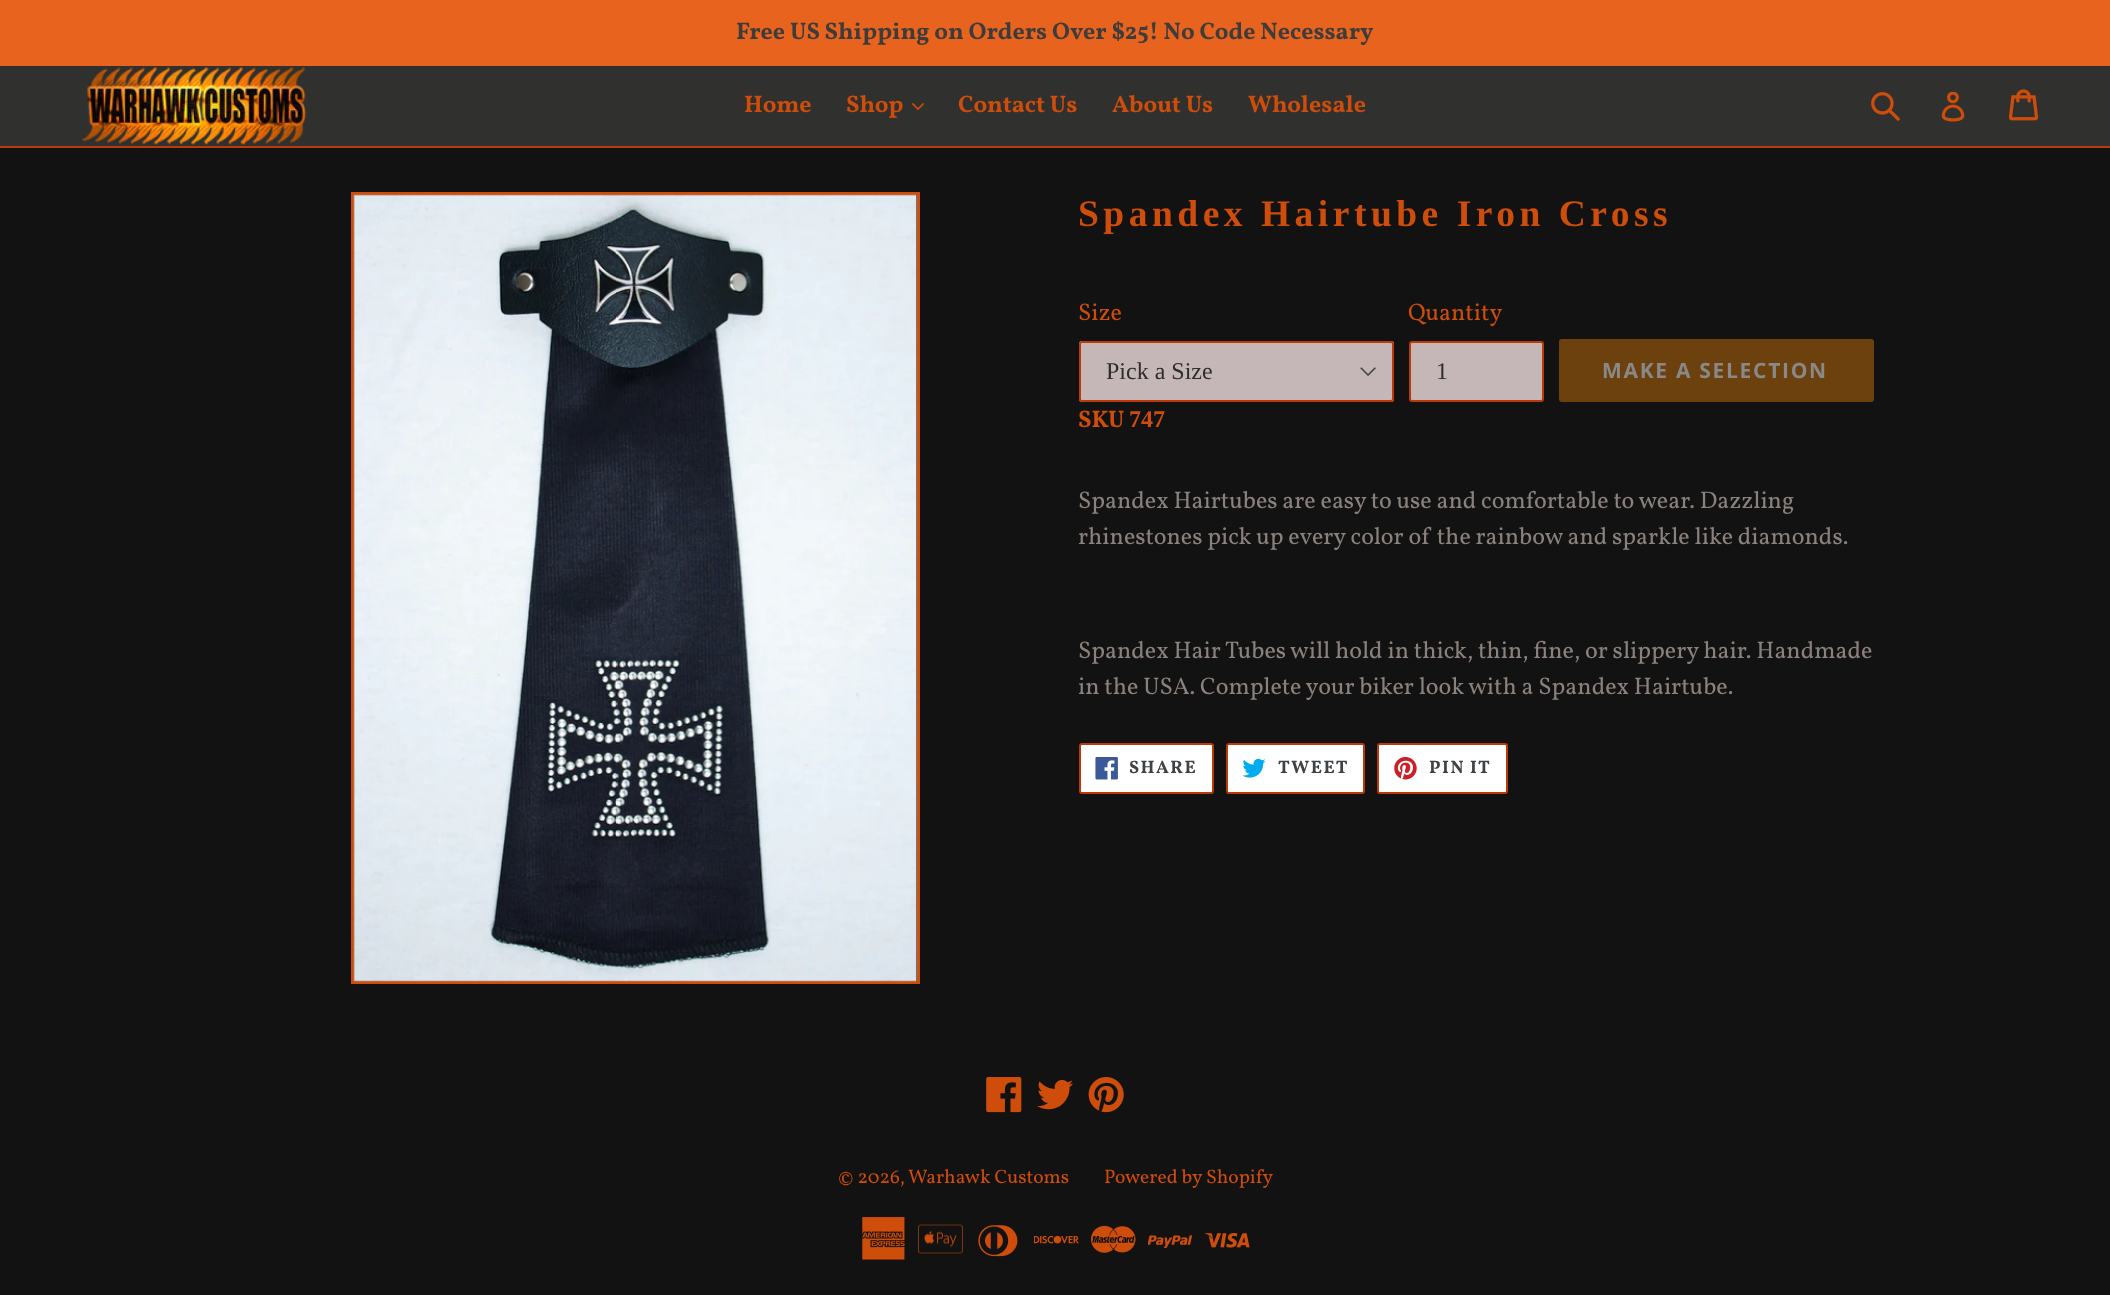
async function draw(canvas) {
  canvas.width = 2110
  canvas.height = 1295
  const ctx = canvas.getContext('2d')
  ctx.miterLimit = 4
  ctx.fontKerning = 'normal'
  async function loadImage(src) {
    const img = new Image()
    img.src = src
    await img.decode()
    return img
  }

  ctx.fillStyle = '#121212'
  ctx.fillRect(0, 0, 2110, 1295)
  ctx.fillStyle = '#e8641e'
  ctx.fillRect(0, 0, 2110, 66)
  ctx.font = 'bold 24px Vollkorn'
  ctx.fillStyle = '#3e3c3b'
  ctx.fillText('Free US Shipping on Orders Over $25! No Code Necessary', 736, 39)
  ctx.fillStyle = '#30302f'
  ctx.fillRect(0, 66, 2110, 80)
  ctx.fillStyle = '#bb3a06'
  ctx.fillRect(0, 146, 2110, 2)
  ctx.drawImage(await loadImage('image0.png'), 82, 67, 225, 78)
  ctx.fillStyle = '#ce4d0a'
  ctx.fillText('Home', 744, 112)
  ctx.fillText('Shop', 846, 112)
  ctx.drawImage(await loadImage('image1.png'), 912, 103, 12, 7)
  ctx.fillText('Contact Us', 958, 112)
  ctx.fillText('About Us', 1112, 112)
  ctx.fillText('Wholesale', 1248, 112)
  ctx.drawImage(await loadImage('image2.png'), 1871, 92, 29, 29)
  ctx.drawImage(await loadImage('image3.png'), 1941, 92, 24, 30)
  ctx.drawImage(await loadImage('image4.png'), 2009, 89, 30, 32)
  ctx.strokeStyle = '#ce4d0a'
  ctx.lineWidth = 3
  ctx.strokeRect(352.5, 193.5, 566, 789)
  ctx.drawImage(await loadImage('image5.png'), 353, 194, 565, 788)
  ctx.letterSpacing = '4.5px'
  ctx.font = 'bold 37.5px Liberation Serif'
  ctx.fillText('Spandex Hairtube Iron Cross', 1078, 226)
  ctx.letterSpacing = '0px'
  ctx.font = '24px Vollkorn'
  ctx.fillText('Size', 1078, 320)
  ctx.fillStyle = '#c5b7b7'
  ctx.beginPath()
  ctx.roundRect(1079, 341, 315, 61, 3)
  ctx.fill()
  ctx.drawImage(await loadImage('image6.png'), 1360, 367, 16, 9)
  ctx.beginPath()
  ctx.roundRect(1080, 342, 313, 59, 2)
  ctx.strokeStyle = '#bb3a06'
  ctx.lineWidth = 2
  ctx.stroke()
  ctx.font = '24px Liberation Serif'
  ctx.fillStyle = '#2e2d2d'
  ctx.fillText('Pick a Size', 1106, 379)
  ctx.font = '24px Vollkorn'
  ctx.fillStyle = '#ce4d0a'
  ctx.fillText('Quantity', 1408, 320)
  ctx.fillStyle = '#c5b7b7'
  ctx.beginPath()
  ctx.roundRect(1410, 342, 133, 59, 2)
  ctx.fill()
  ctx.stroke()
  ctx.font = '24px Liberation Serif'
  ctx.fillStyle = '#2e2d2d'
  ctx.fillText('1', 1436, 379)
  ctx.fillStyle = '#6d410e'
  ctx.beginPath()
  ctx.roundRect(1559, 339, 315, 63, 3)
  ctx.fill()
  ctx.letterSpacing = '1.7px'
  ctx.font = 'bold 21px Open Sans'
  ctx.fillStyle = '#898989'
  ctx.fillText('MAKE A SELECTION', 1602, 378)
  ctx.letterSpacing = '0px'
  ctx.font = 'bold 24px Vollkorn'
  ctx.fillStyle = '#ce4d0a'
  ctx.fillText('SKU', 1078, 427)
  ctx.font = 'bold 24px Liberation Serif'
  ctx.fillText('747', 1129, 427)
  ctx.font = '24px Vollkorn'
  ctx.fillStyle = '#8b817c'
  ctx.fillText('Spandex Hairtubes are easy to use and comfortable to wear. Dazzling', 1078, 508)
  ctx.fillText('rhinestones pick up every color of the rainbow and sparkle like diamonds.', 1078, 544)
  ctx.fillText('Spandex Hair Tubes will hold in thick, thin, fine, or slippery hair. Handmade', 1078, 658)
  ctx.fillText('in the USA. Complete your biker look with a Spandex Hairtube.', 1078, 694)
  ctx.fillStyle = '#fff'
  ctx.beginPath()
  ctx.roundRect(1080, 744, 133, 49, 2)
  ctx.fill()
  ctx.stroke()
  ctx.drawImage(await loadImage('image7.png'), 1095, 757, 23, 23)
  ctx.letterSpacing = '1.5px'
  ctx.font = 'bold 18px Vollkorn'
  ctx.fillStyle = '#3d4246'
  ctx.fillText('SHARE', 1129, 773)
  ctx.fillStyle = '#fff'
  ctx.beginPath()
  ctx.roundRect(1227, 744, 137, 49, 2)
  ctx.fill()
  ctx.stroke()
  ctx.drawImage(await loadImage('image8.png'), 1242, 758, 24, 20)
  ctx.fillStyle = '#3d4246'
  ctx.fillText('TWEET', 1278, 773)
  ctx.fillStyle = '#fff'
  ctx.beginPath()
  ctx.roundRect(1378, 744, 129, 49, 2)
  ctx.fill()
  ctx.stroke()
  ctx.drawImage(await loadImage('image9.png'), 1394, 757, 23, 23)
  ctx.fillStyle = '#3d4246'
  ctx.fillText('PIN IT', 1429, 773)
  ctx.drawImage(await loadImage('image10.png'), 986, 1077, 36, 36)
  ctx.drawImage(await loadImage('image11.png'), 1037, 1079, 36, 31)
  ctx.drawImage(await loadImage('image12.png'), 1088, 1077, 36, 36)
  ctx.letterSpacing = '0px'
  ctx.font = '19.5px Vollkorn'
  ctx.fillStyle = '#ce4d0a'
  ctx.fillText('© 2026,', 838, 1183)
  ctx.fillText('Warhawk Customs', 908, 1183)
  ctx.fillText('Powered by Shopify', 1104, 1183)
  ctx.drawImage(await loadImage('image13.png'), 862, 1217, 43, 43)
  ctx.drawImage(await loadImage('image14.png'), 918, 1224, 45, 30)
  ctx.drawImage(await loadImage('image15.png'), 978, 1225, 40, 32)
  ctx.drawImage(await loadImage('image16.png'), 1034, 1235, 45, 9)
  ctx.drawImage(await loadImage('image17.png'), 1091, 1225, 45, 28)
  ctx.drawImage(await loadImage('image18.png'), 1148, 1235, 45, 13)
  ctx.drawImage(await loadImage('image19.png'), 1205, 1233, 45, 15)
}

draw(document.querySelector('canvas'))
